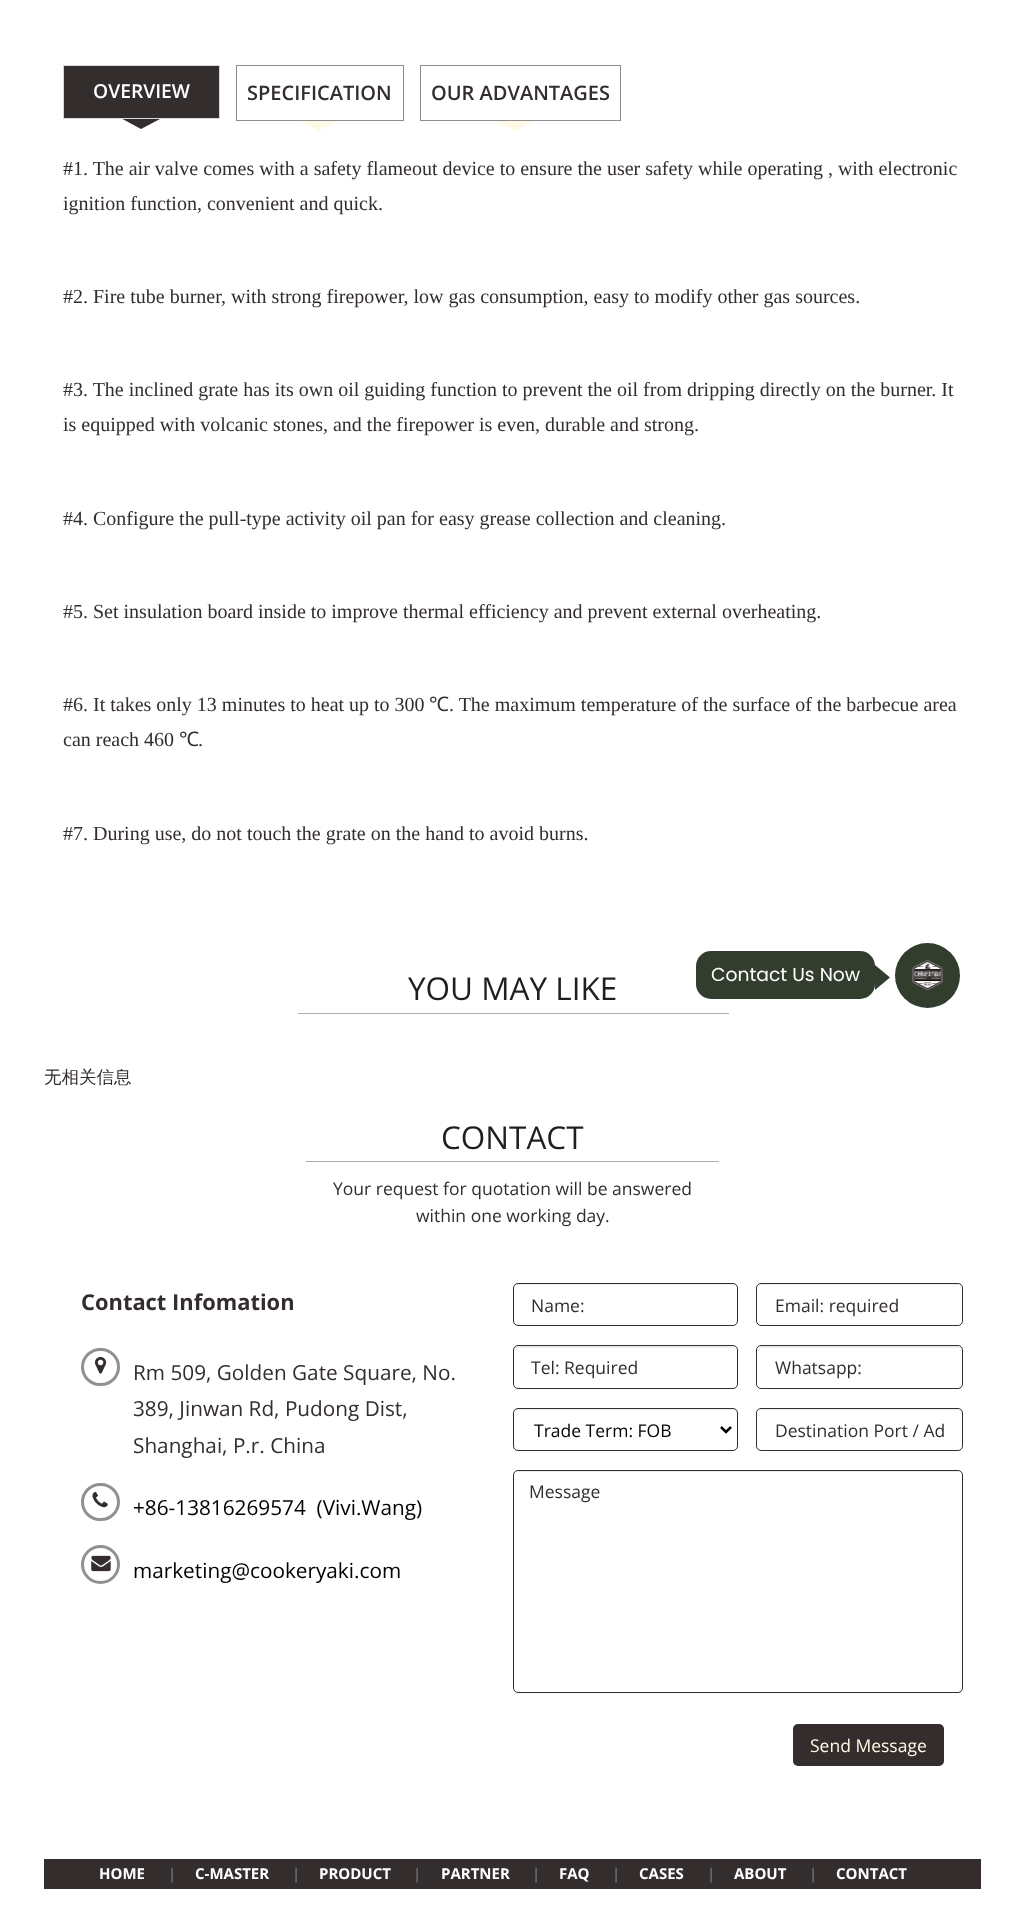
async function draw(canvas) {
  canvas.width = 1025
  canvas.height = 1913
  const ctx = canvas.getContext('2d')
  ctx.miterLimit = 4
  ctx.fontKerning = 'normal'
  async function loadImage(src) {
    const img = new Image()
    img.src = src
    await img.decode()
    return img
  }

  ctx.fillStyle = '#fff'
  ctx.fillRect(0, 0, 1025, 1913)
  ctx.fillStyle = '#332d2d'
  ctx.beginPath()
  ctx.rect(63.5, 65.5, 156, 53)
  ctx.fill()
  ctx.strokeStyle = '#d8d8d8'
  ctx.stroke()
  ctx.font = '600 19.25px Open Sans'
  ctx.fillStyle = '#fff'
  ctx.fillText('OVERVIEW', 93, 98)
  ctx.fillStyle = '#332d2d'
  ctx.beginPath()
  ctx.moveTo(122.5, 119)
  ctx.lineTo(160, 119)
  ctx.lineTo(141, 129)
  ctx.closePath()
  ctx.fill()
  ctx.strokeStyle = '#8d8e8e'
  ctx.strokeRect(236.5, 65.5, 167, 55)
  ctx.font = '600 20px Open Sans'
  ctx.fillText('SPECIFICATION', 247, 100)
  ctx.fillStyle = '#fffae6'
  ctx.beginPath()
  ctx.moveTo(300, 121)
  ctx.lineTo(337.5, 121)
  ctx.lineTo(319, 131)
  ctx.closePath()
  ctx.fill()
  ctx.strokeRect(420.5, 65.5, 200, 55)
  ctx.fillStyle = '#332d2d'
  ctx.fillText('OUR ADVANTAGES', 431, 100)
  ctx.fillStyle = '#fffae6'
  ctx.beginPath()
  ctx.moveTo(496, 121)
  ctx.lineTo(534, 121)
  ctx.lineTo(515, 131)
  ctx.closePath()
  ctx.fill()
  ctx.font = '20px Liberation Serif'
  ctx.fillStyle = '#332d2d'
  ctx.fillText('#1. The air valve comes with a safety flameout device to ensure the user safety while operating , with electronic', 63, 175)
  ctx.fillText('ignition function, convenient and quick.', 63, 210)
  ctx.fillText('#2. Fire tube burner, with strong firepower, low gas consumption, easy to modify other gas sources.', 63, 303)
  ctx.fillText('#3. The inclined grate has its own oil guiding function to prevent the oil from dripping directly on the burner. It', 63, 396)
  ctx.fillText('is equipped with volcanic stones, and the firepower is even, durable and strong.', 63, 431)
  ctx.fillText('#4. Configure the pull-type activity oil pan for easy grease collection and cleaning.', 63, 525)
  ctx.fillText('#5. Set insulation board inside to improve thermal efficiency and prevent external overheating.', 63, 618)
  ctx.fillText('#6. It takes only 13 minutes to heat up to 300', 63, 711)
  ctx.font = '20px Noto Sans'
  ctx.fillText('℃', 429, 711)
  ctx.font = '20px Liberation Serif'
  ctx.fillText('. The maximum temperature of the surface of the barbecue area', 449, 711)
  ctx.fillText('can reach 460', 63, 746)
  ctx.font = '20px Noto Sans'
  ctx.fillText('℃', 179, 746)
  ctx.font = '20px Liberation Serif'
  ctx.fillText('.', 198, 746)
  ctx.fillText('#7. During use, do not touch the grate on the hand to avoid burns.', 63, 840)
  ctx.fillStyle = '#afaeaa'
  ctx.fillRect(298, 1013, 431, 1)
  ctx.font = '31.5px Open Sans'
  ctx.fillStyle = '#1f1f1f'
  ctx.fillText('YOU MAY LIKE', 408, 1000)
  ctx.font = '500 17.5px WenQuanYi Zen Hei'
  ctx.fillStyle = '#332d2d'
  ctx.fillText('无相关信息', 44, 1083)
  ctx.fillStyle = '#afaeaa'
  ctx.fillRect(306, 1161, 413, 1)
  ctx.font = '31.5px Open Sans'
  ctx.fillStyle = '#1f1f1f'
  ctx.fillText('CONTACT', 441, 1149)
  ctx.font = '17.5px Open Sans'
  ctx.fillStyle = '#332d2d'
  ctx.fillText('Your request for quotation will be answered', 333, 1195)
  ctx.fillText('within one working day.', 416, 1222)
  ctx.font = 'bold 21.9px Open Sans'
  ctx.fillText('Contact Infomation', 81, 1310)
  ctx.beginPath()
  ctx.roundRect(82.5, 1349.5, 36, 35, 17.5)
  ctx.strokeStyle = '#919191'
  ctx.lineWidth = 3
  ctx.stroke()
  ctx.drawImage(await loadImage('image0.png'), 95, 1357, 12, 17)
  ctx.font = '20.75px Open Sans'
  ctx.fillText('Rm 509, Golden Gate Square, No.', 133, 1380)
  ctx.fillText('389, Jinwan Rd, Pudong Dist,', 133, 1416)
  ctx.fillText('Shanghai, P.r. China', 133, 1453)
  ctx.beginPath()
  ctx.roundRect(82.5, 1484.5, 36, 35, 17.5)
  ctx.stroke()
  ctx.drawImage(await loadImage('image1.png'), 92, 1491, 16, 17)
  ctx.fillStyle = '#000'
  ctx.fillText('+86-13816269574  (Vivi.Wang)', 133, 1515)
  ctx.beginPath()
  ctx.arc(100.5, 1564.5, 18, 0, 2 * Math.PI)
  ctx.stroke()
  ctx.drawImage(await loadImage('image2.png'), 91, 1555, 20, 17)
  ctx.fillText('marketing@cookeryaki.com', 133, 1578)
  ctx.fillStyle = '#ececec'
  ctx.beginPath()
  ctx.moveTo(518, 1285)
  ctx.lineTo(732, 1285)
  ctx.bezierCurveTo(735, 1285, 736, 1287, 736, 1289)
  ctx.bezierCurveTo(736, 1286, 735, 1284, 732, 1284)
  ctx.lineTo(518, 1284)
  ctx.bezierCurveTo(515, 1284, 514, 1286, 514, 1289)
  ctx.bezierCurveTo(514, 1287, 515, 1285, 518, 1285)
  ctx.closePath()
  ctx.fill()
  ctx.beginPath()
  ctx.roundRect(513.5, 1283.5, 224, 42, 4.5)
  ctx.strokeStyle = '#332d2d'
  ctx.lineWidth = 1
  ctx.stroke()
  ctx.font = '17.5px Open Sans'
  ctx.fillStyle = '#332d2d'
  ctx.fillText('Name:', 531, 1312)
  ctx.fillStyle = '#ececec'
  ctx.beginPath()
  ctx.moveTo(761, 1285)
  ctx.lineTo(958, 1285)
  ctx.bezierCurveTo(960, 1285, 961, 1287, 961, 1289)
  ctx.lineTo(961, 1288)
  ctx.bezierCurveTo(961, 1286, 959, 1284, 957, 1284)
  ctx.lineTo(762, 1284)
  ctx.bezierCurveTo(760, 1284, 758, 1286, 758, 1288)
  ctx.lineTo(758, 1289)
  ctx.bezierCurveTo(758, 1287, 759, 1285, 761, 1285)
  ctx.closePath()
  ctx.fill()
  ctx.beginPath()
  ctx.roundRect(756.5, 1283.5, 206, 42, 4.5)
  ctx.stroke()
  ctx.fillStyle = '#332d2d'
  ctx.fillText('Email: required', 775, 1312)
  ctx.fillStyle = '#ececec'
  ctx.beginPath()
  ctx.moveTo(518, 1348)
  ctx.lineTo(732, 1348)
  ctx.bezierCurveTo(735, 1348, 736, 1349, 736, 1351)
  ctx.bezierCurveTo(736, 1348, 735, 1346, 732, 1346)
  ctx.lineTo(518, 1346)
  ctx.bezierCurveTo(515, 1346, 514, 1348, 514, 1351)
  ctx.bezierCurveTo(514, 1349, 515, 1348, 518, 1348)
  ctx.closePath()
  ctx.fill()
  ctx.beginPath()
  ctx.roundRect(513.5, 1345.5, 224, 43, 4.5)
  ctx.stroke()
  ctx.fillStyle = '#332d2d'
  ctx.fillText('Tel: Required', 531, 1374)
  ctx.fillStyle = '#ececec'
  ctx.beginPath()
  ctx.moveTo(761, 1348)
  ctx.lineTo(958, 1348)
  ctx.bezierCurveTo(960, 1348, 961, 1349, 961, 1351)
  ctx.lineTo(961, 1350)
  ctx.bezierCurveTo(961, 1348, 959, 1346, 957, 1346)
  ctx.lineTo(762, 1346)
  ctx.bezierCurveTo(760, 1346, 758, 1348, 758, 1350)
  ctx.lineTo(758, 1351)
  ctx.bezierCurveTo(758, 1349, 759, 1348, 761, 1348)
  ctx.closePath()
  ctx.fill()
  ctx.beginPath()
  ctx.roundRect(756.5, 1345.5, 206, 43, 4.5)
  ctx.stroke()
  ctx.fillStyle = '#332d2d'
  ctx.fillText('Whatsapp:', 775, 1374)
  ctx.fillStyle = '#ececec'
  ctx.beginPath()
  ctx.moveTo(518, 1410)
  ctx.lineTo(732, 1410)
  ctx.bezierCurveTo(735, 1410, 736, 1412, 736, 1414)
  ctx.bezierCurveTo(736, 1411, 735, 1409, 732, 1409)
  ctx.lineTo(518, 1409)
  ctx.bezierCurveTo(515, 1409, 514, 1411, 514, 1414)
  ctx.bezierCurveTo(514, 1412, 515, 1410, 518, 1410)
  ctx.closePath()
  ctx.fill()
  ctx.beginPath()
  ctx.roundRect(513.5, 1408.5, 224, 42, 4.5)
  ctx.stroke()
  ctx.beginPath()
  ctx.moveTo(721, 1427)
  ctx.lineTo(726, 1432)
  ctx.lineTo(731, 1427)
  ctx.strokeStyle = '#000'
  ctx.lineWidth = 2.5
  ctx.stroke()
  ctx.fillStyle = '#000'
  ctx.fillText('Trade Term: FOB', 534, 1437)
  ctx.fillStyle = '#ececec'
  ctx.beginPath()
  ctx.moveTo(761, 1410)
  ctx.lineTo(958, 1410)
  ctx.bezierCurveTo(960, 1410, 961, 1412, 961, 1414)
  ctx.lineTo(961, 1413)
  ctx.bezierCurveTo(961, 1411, 959, 1409, 957, 1409)
  ctx.lineTo(762, 1409)
  ctx.bezierCurveTo(760, 1409, 758, 1411, 758, 1413)
  ctx.lineTo(758, 1414)
  ctx.bezierCurveTo(758, 1412, 759, 1410, 761, 1410)
  ctx.closePath()
  ctx.fill()
  ctx.beginPath()
  ctx.roundRect(756.5, 1408.5, 206, 42, 4.5)
  ctx.strokeStyle = '#332d2d'
  ctx.lineWidth = 1
  ctx.stroke()
  ctx.fillStyle = '#332d2d'
  ctx.fillText('Destination Port / Ad', 775, 1437)
  ctx.fillStyle = '#ececec'
  ctx.beginPath()
  ctx.moveTo(518, 1472)
  ctx.lineTo(958, 1472)
  ctx.bezierCurveTo(960, 1472, 961, 1474, 961, 1476)
  ctx.bezierCurveTo(961, 1473, 960, 1471, 957, 1471)
  ctx.lineTo(518, 1471)
  ctx.lineTo(516, 1472)
  ctx.lineTo(515, 1473)
  ctx.lineTo(514, 1476)
  ctx.bezierCurveTo(514, 1474, 515, 1472, 518, 1472)
  ctx.closePath()
  ctx.fill()
  ctx.beginPath()
  ctx.roundRect(513.5, 1470.5, 449, 222, 4.5)
  ctx.stroke()
  ctx.fillStyle = '#332d2d'
  ctx.fillText('Message', 529, 1498)
  ctx.beginPath()
  ctx.roundRect(793, 1724, 151, 42, 5)
  ctx.fill()
  ctx.fillStyle = '#fffae6'
  ctx.fillText('Send Message', 810, 1752)
  ctx.fillStyle = '#332d2d'
  ctx.fillRect(44, 1859, 937, 30)
  ctx.font = 'bold 15px Open Sans'
  ctx.fillStyle = '#fff'
  ctx.fillText('HOME', 99, 1879)
  ctx.fillStyle = '#666'
  ctx.fillText('|', 168, 1879)
  ctx.fillStyle = '#fff'
  ctx.fillText('C-MASTER', 195, 1879)
  ctx.fillStyle = '#666'
  ctx.fillText('|', 292, 1879)
  ctx.fillStyle = '#fff'
  ctx.fillText('PRODUCT', 319, 1879)
  ctx.fillStyle = '#666'
  ctx.fillText('|', 413, 1879)
  ctx.fillStyle = '#fff'
  ctx.fillText('PARTNER', 441, 1879)
  ctx.fillStyle = '#666'
  ctx.fillText('|', 532, 1879)
  ctx.fillStyle = '#fff'
  ctx.fillText('FAQ', 559, 1879)
  ctx.fillStyle = '#666'
  ctx.fillText('|', 612, 1879)
  ctx.fillStyle = '#fff'
  ctx.fillText('CASES', 639, 1879)
  ctx.fillStyle = '#666'
  ctx.fillText('|', 707, 1879)
  ctx.fillStyle = '#fff'
  ctx.fillText('ABOUT', 734, 1879)
  ctx.fillStyle = '#666'
  ctx.fillText('|', 809, 1879)
  ctx.fillStyle = '#fff'
  ctx.fillText('CONTACT', 836, 1879)
  ctx.fillStyle = '#333d2d'
  ctx.beginPath()
  ctx.arc(927.5, 975.5, 32.5, 0, 2 * Math.PI)
  ctx.fill()
  ctx.beginPath()
  ctx.roundRect(696, 951, 179, 48, 15)
  ctx.fill()
  ctx.font = '18.75px Poppins'
  ctx.fillStyle = '#fff'
  ctx.fillText('Contact Us Now', 711, 981)
  ctx.fillStyle = '#333d2d'
  ctx.beginPath()
  ctx.moveTo(875, 990)
  ctx.lineTo(875, 965)
  ctx.lineTo(890, 977.5)
  ctx.closePath()
  ctx.fill()
  ctx.drawImage(await loadImage('image3.png'), 912, 960, 31, 30)
}

draw(document.querySelector('canvas'))
